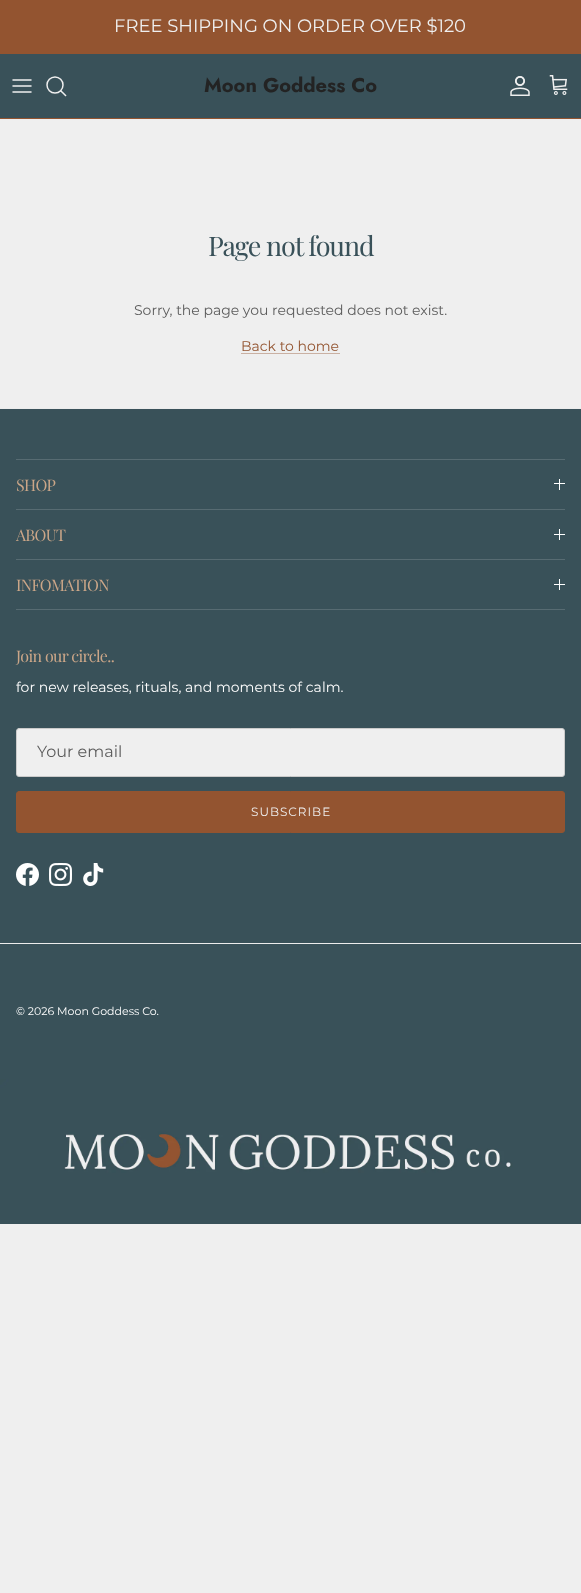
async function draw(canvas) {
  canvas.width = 581
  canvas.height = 1593
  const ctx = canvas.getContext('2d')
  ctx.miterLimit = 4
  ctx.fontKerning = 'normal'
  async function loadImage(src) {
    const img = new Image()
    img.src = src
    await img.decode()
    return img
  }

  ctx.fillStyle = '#efefef'
  ctx.fillRect(0, 0, 581, 1593)
  ctx.fillStyle = '#935430'
  ctx.fillRect(0, 0, 581, 54)
  ctx.font = '18px Montserrat'
  ctx.fillStyle = '#efefef'
  ctx.fillText('FREE SHIPPING ON ORDER OVER $120', 114, 32)
  ctx.fillStyle = '#395159'
  ctx.fillRect(0, 54, 581, 64)
  ctx.fillStyle = '#935430'
  ctx.fillRect(0, 118, 581, 1)
  ctx.beginPath()
  ctx.moveTo(13, 86)
  ctx.lineTo(31, 86)
  ctx.moveTo(13, 80)
  ctx.lineTo(31, 80)
  ctx.moveTo(13, 92)
  ctx.lineTo(31, 92)
  ctx.strokeStyle = '#efefef'
  ctx.lineWidth = 1.5
  ctx.lineCap = 'round'
  ctx.lineJoin = 'round'
  ctx.stroke()
  ctx.beginPath()
  ctx.arc(55, 85, 8, 0, 2 * Math.PI)
  ctx.stroke()
  ctx.beginPath()
  ctx.moveTo(61, 91)
  ctx.lineTo(65.5, 95.5)
  ctx.lineCap = 'square'
  ctx.lineJoin = 'miter'
  ctx.stroke()
  ctx.font = 'bold 20px Jost'
  ctx.fillStyle = '#232323'
  ctx.fillText('Moon Goddess Co', 204, 92)
  ctx.drawImage(await loadImage('image0.png'), 510, 76, 20, 20)
  ctx.drawImage(await loadImage('image1.png'), 549, 75, 19, 20)
  ctx.letterSpacing = '-1.1px'
  ctx.font = '27px Playfair Display'
  ctx.fillStyle = '#395159'
  ctx.fillText('Page not found', 208, 256)
  ctx.letterSpacing = '0px'
  ctx.font = '14px Montserrat'
  ctx.fillStyle = '#5c5c5c'
  ctx.fillText('Sorry, the page you requested does not exist.', 134, 315)
  ctx.fillStyle = '#935430'
  ctx.fillText('Back to home', 241, 351)
  ctx.fillStyle = '#cab1a3'
  ctx.fillRect(241, 353, 99, 1)
  ctx.fillStyle = '#395159'
  ctx.fillRect(0, 409, 581, 670)
  ctx.fillStyle = '#ececec'
  ctx.fillRect(0, 408, 581, 1)
  ctx.fillStyle = '#576b72'
  ctx.fillRect(16, 459, 549, 1)
  ctx.letterSpacing = '-0.6px'
  ctx.font = '16px Playfair Display'
  ctx.fillStyle = '#cba688'
  ctx.fillText('SHOP', 16, 491)
  ctx.fillStyle = '#fff'
  ctx.fillRect(559, 479, 1, 11)
  ctx.fillRect(554, 483, 11, 1)
  ctx.fillStyle = '#576b72'
  ctx.fillRect(16, 509, 549, 1)
  ctx.fillStyle = '#cba688'
  ctx.fillText('ABOUT', 16, 541)
  ctx.fillStyle = '#fff'
  ctx.fillRect(559, 529, 1, 11)
  ctx.fillRect(554, 534, 11, 1)
  ctx.fillStyle = '#576b72'
  ctx.fillRect(16, 559, 549, 1)
  ctx.fillRect(16, 609, 549, 1)
  ctx.fillStyle = '#cba688'
  ctx.fillText('INFOMATION', 16, 591)
  ctx.fillStyle = '#fff'
  ctx.fillRect(559, 579, 1, 11)
  ctx.fillRect(554, 584, 11, 1)
  ctx.fillStyle = '#cba688'
  ctx.fillText('Join our circle..', 16, 662)
  ctx.letterSpacing = '0px'
  ctx.font = '14px Montserrat'
  ctx.fillStyle = '#fff'
  ctx.fillText('for new releases, rituals, and moments of calm.', 16, 692)
  ctx.fillStyle = '#efefef'
  ctx.beginPath()
  ctx.roundRect(16.5, 728.5, 548, 48, 2.5)
  ctx.fill()
  ctx.strokeStyle = '#cacaca'
  ctx.lineWidth = 1
  ctx.stroke()
  ctx.font = '16px Montserrat'
  ctx.fillStyle = '#5c5c5c'
  ctx.fillText('Your email', 37, 757)
  ctx.fillStyle = '#935430'
  ctx.beginPath()
  ctx.roundRect(16.5, 791.5, 548, 41, 2.5)
  ctx.fill()
  ctx.strokeStyle = '#935430'
  ctx.stroke()
  ctx.letterSpacing = '1px'
  ctx.font = '12px Montserrat'
  ctx.fillStyle = '#efefef'
  ctx.fillText('SUBSCRIBE', 251, 816)
  ctx.drawImage(await loadImage('image2.png'), 16, 863, 23, 23)
  ctx.drawImage(await loadImage('image3.png'), 49, 863, 23, 23)
  ctx.drawImage(await loadImage('image4.png'), 83, 863, 21, 23)
  ctx.fillStyle = '#ececec'
  ctx.fillRect(0, 943, 581, 1)
  ctx.letterSpacing = '0px'
  ctx.font = '11px Montserrat'
  ctx.fillStyle = '#fff'
  ctx.fillText('© 2026 Moon Goddess Co.', 16, 1015)
  ctx.drawImage(await loadImage('image5.png'), 0, 1079, 581, 145)
}

draw(document.querySelector('canvas'))
